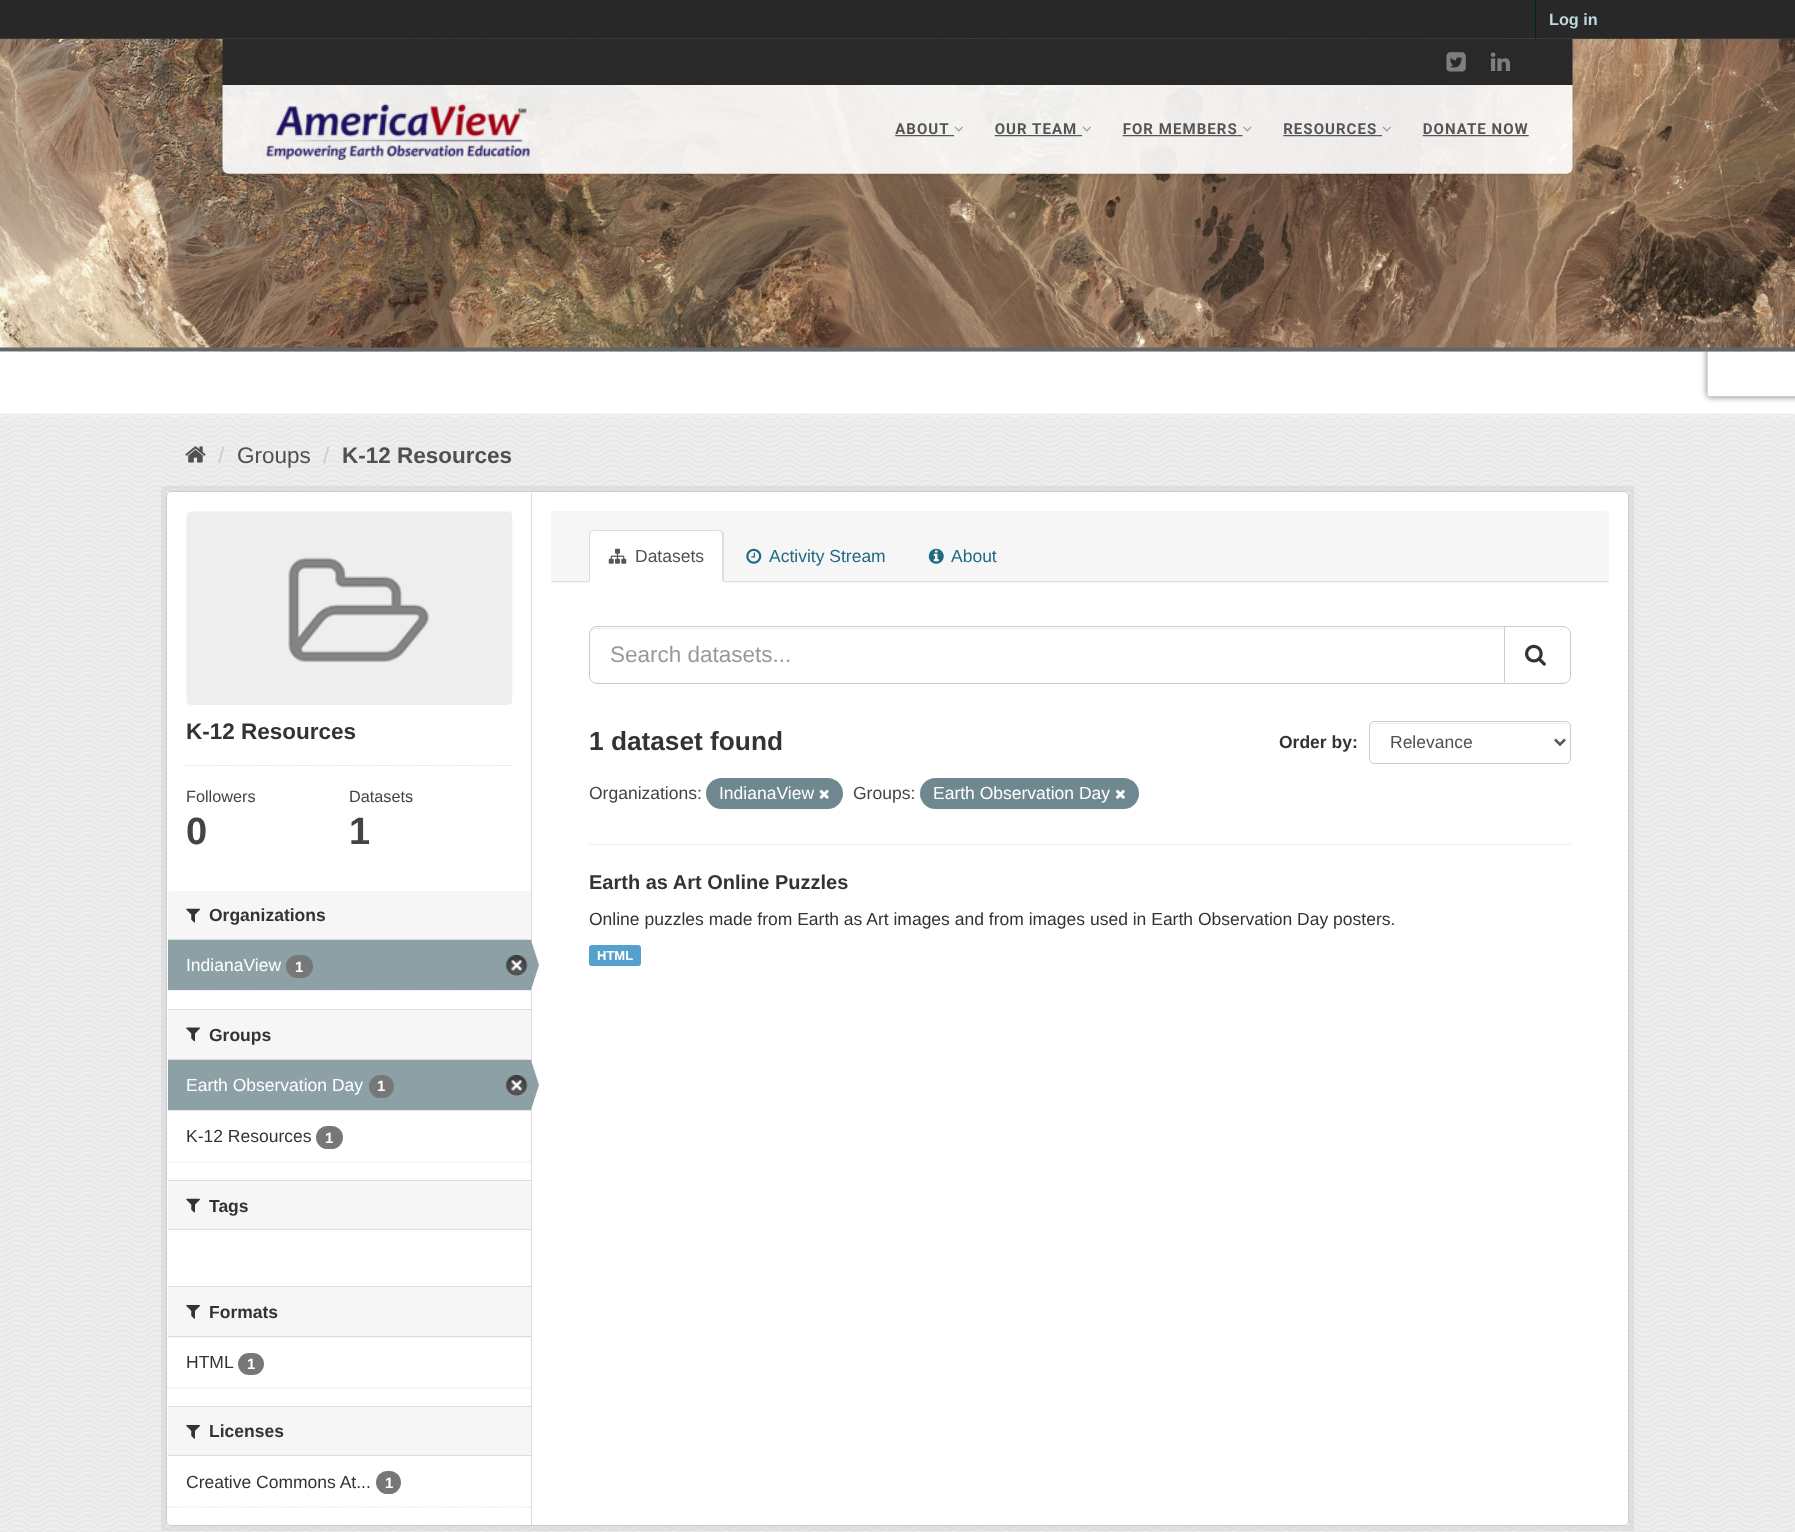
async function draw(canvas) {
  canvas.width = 1795
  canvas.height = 1532
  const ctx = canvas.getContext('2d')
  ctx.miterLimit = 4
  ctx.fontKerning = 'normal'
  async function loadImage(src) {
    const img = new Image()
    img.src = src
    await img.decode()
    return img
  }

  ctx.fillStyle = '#282828'
  ctx.fillRect(0, 0, 1795, 1532)
  ctx.fillStyle = '#00232e'
  ctx.fillRect(1535, 0, 1, 39)
  ctx.font = 'bold 16.25px Liberation Sans'
  ctx.fillStyle = '#bfd7de'
  ctx.fillText('Log in', 1549, 25)
  ctx.fillStyle = '#f0f0f0'
  ctx.fillRect(0, 413, 1795, 8)
  ctx.drawImage(await loadImage('image0.png'), 0, 413, 1795, 8)
  ctx.drawImage(await loadImage('image1.png'), 0, 38, 1795, 376)
  ctx.fillStyle = '#eee'
  ctx.fillRect(0, 421, 1795, 1111)
  ctx.drawImage(await loadImage('image2.png'), 0, 421, 1795, 1111)
  ctx.drawImage(await loadImage('image3.png'), 185, 446, 21, 17)
  ctx.font = '22.5px Liberation Sans'
  ctx.fillStyle = '#ccc'
  ctx.fillText('/', 218, 463)
  ctx.fillStyle = '#505050'
  ctx.fillText('Groups', 237, 463)
  ctx.fillStyle = '#ccc'
  ctx.fillText('/', 323, 463)
  ctx.font = 'bold 22.5px Liberation Sans'
  ctx.fillStyle = '#505050'
  ctx.fillText('K-12 Resources', 342, 463)
  ctx.strokeStyle = '#0000000d'
  ctx.lineWidth = 5
  ctx.strokeRect(163.5, 488.5, 1468, 1040)
  ctx.fillStyle = '#fff'
  ctx.beginPath()
  ctx.roundRect(166.5, 491.5, 1462, 1034, 4.5)
  ctx.fill()
  ctx.strokeStyle = '#ccc'
  ctx.lineWidth = 1
  ctx.stroke()
  ctx.drawImage(await loadImage('image4.png'), 186, 511, 327, 194)
  ctx.fillStyle = '#333'
  ctx.fillText('K-12 Resources', 186, 739)
  ctx.beginPath()
  ctx.moveTo(186, 765.5)
  ctx.lineTo(512.5, 765.5)
  ctx.strokeStyle = '#ddd'
  ctx.lineWidth = 1.2
  ctx.setLineDash([1.25, 1.25])
  ctx.stroke()
  ctx.font = '16.25px Liberation Sans'
  ctx.fillStyle = '#444'
  ctx.fillText('Followers', 186, 802)
  ctx.font = 'bold 38px Liberation Sans'
  ctx.fillText('0', 186, 844)
  ctx.font = '16.25px Liberation Sans'
  ctx.fillText('Datasets', 349, 802)
  ctx.font = 'bold 38px Liberation Sans'
  ctx.fillText('1', 349, 844)
  ctx.fillStyle = '#f6f6f6'
  ctx.beginPath()
  ctx.roundRect(168, 891, 363, 49, [4, 0, 0, 0])
  ctx.fill()
  ctx.fillStyle = '#ddd'
  ctx.fillRect(168, 939, 363, 1)
  ctx.drawImage(await loadImage('image5.png'), 186, 908, 14, 15)
  ctx.font = 'bold 17.5px Liberation Sans'
  ctx.fillStyle = '#333'
  ctx.fillText('Organizations', 209, 921)
  ctx.beginPath()
  ctx.moveTo(167.5, 990.5)
  ctx.lineTo(531, 990.5)
  ctx.stroke()
  ctx.fillStyle = '#8ca0a6'
  ctx.fillRect(168, 940, 363, 50)
  ctx.font = '17.5px Liberation Sans'
  ctx.fillStyle = '#fff'
  ctx.fillText('IndianaView', 186, 971)
  ctx.fillStyle = '#777'
  ctx.beginPath()
  ctx.roundRect(286, 955, 27, 23, 11.5)
  ctx.fill()
  ctx.font = 'bold 15px Liberation Sans'
  ctx.fillStyle = '#fff'
  ctx.fillText('1', 295, 972)
  ctx.drawImage(await loadImage('image6.png'), 506, 955, 22, 22)
  ctx.fillStyle = '#ddd'
  ctx.fillRect(531, 493, 1, 1032)
  ctx.fillStyle = '#8ca0a6'
  ctx.beginPath()
  ctx.moveTo(531, 990)
  ctx.lineTo(531, 940)
  ctx.lineTo(539, 965)
  ctx.closePath()
  ctx.fill()
  ctx.fillStyle = '#f6f6f6'
  ctx.fillRect(168, 1010, 363, 49)
  ctx.fillStyle = '#ddd'
  ctx.fillRect(168, 1009, 363, 1)
  ctx.fillRect(168, 1059, 363, 1)
  ctx.drawImage(await loadImage('image7.png'), 186, 1027, 14, 15)
  ctx.font = 'bold 17.5px Liberation Sans'
  ctx.fillStyle = '#333'
  ctx.fillText('Groups', 209, 1041)
  ctx.fillStyle = '#f6f6f6'
  ctx.fillRect(168, 1110, 362, 1)
  ctx.beginPath()
  ctx.moveTo(167.5, 1110.5)
  ctx.lineTo(531, 1110.5)
  ctx.stroke()
  ctx.fillStyle = '#8ca0a6'
  ctx.fillRect(168, 1060, 363, 50)
  ctx.font = '17.5px Liberation Sans'
  ctx.fillStyle = '#fff'
  ctx.fillText('Earth Observation Day', 186, 1091)
  ctx.fillStyle = '#777'
  ctx.beginPath()
  ctx.roundRect(369, 1075, 25, 23, 11.5)
  ctx.fill()
  ctx.font = 'bold 15px Liberation Sans'
  ctx.fillStyle = '#fff'
  ctx.fillText('1', 377, 1091)
  ctx.drawImage(await loadImage('image6.png'), 506, 1075, 22, 22)
  ctx.fillStyle = '#8ca0a6'
  ctx.beginPath()
  ctx.moveTo(531, 1110)
  ctx.lineTo(531, 1060)
  ctx.lineTo(539, 1085)
  ctx.closePath()
  ctx.fill()
  ctx.font = '17.5px Liberation Sans'
  ctx.fillStyle = '#333'
  ctx.fillText('K-12 Resources', 186, 1142)
  ctx.fillStyle = '#777'
  ctx.beginPath()
  ctx.roundRect(316, 1126, 27, 23, 11.5)
  ctx.fill()
  ctx.font = 'bold 15px Liberation Sans'
  ctx.fillStyle = '#fff'
  ctx.fillText('1', 325, 1143)
  ctx.beginPath()
  ctx.moveTo(167.5, 1162)
  ctx.lineTo(531, 1162)
  ctx.stroke()
  ctx.fillStyle = '#f6f6f6'
  ctx.fillRect(168, 1181, 363, 48)
  ctx.fillStyle = '#ddd'
  ctx.fillRect(168, 1180, 363, 1)
  ctx.fillRect(168, 1229, 363, 1)
  ctx.drawImage(await loadImage('image5.png'), 186, 1198, 14, 15)
  ctx.font = 'bold 17.5px Liberation Sans'
  ctx.fillStyle = '#333'
  ctx.fillText('Tags', 209, 1212)
  ctx.fillStyle = '#f6f6f6'
  ctx.fillRect(168, 1287, 363, 51)
  ctx.fillStyle = '#ddd'
  ctx.fillRect(168, 1286, 363, 1)
  ctx.fillRect(168, 1336, 363, 1)
  ctx.drawImage(await loadImage('image8.png'), 186, 1305, 14, 14)
  ctx.fillStyle = '#333'
  ctx.fillText('Formats', 209, 1318)
  ctx.font = '17.5px Liberation Sans'
  ctx.fillText('HTML', 186, 1368)
  ctx.fillStyle = '#777'
  ctx.beginPath()
  ctx.roundRect(238, 1353, 26, 22, 11)
  ctx.fill()
  ctx.font = 'bold 15px Liberation Sans'
  ctx.fillStyle = '#fff'
  ctx.fillText('1', 247, 1369)
  ctx.beginPath()
  ctx.moveTo(167.5, 1388)
  ctx.lineTo(531, 1388)
  ctx.stroke()
  ctx.fillStyle = '#f6f6f6'
  ctx.fillRect(168, 1407, 363, 48)
  ctx.fillStyle = '#ddd'
  ctx.fillRect(168, 1406, 363, 1)
  ctx.fillRect(168, 1455, 363, 1)
  ctx.drawImage(await loadImage('image8.png'), 186, 1425, 14, 14)
  ctx.font = 'bold 17.5px Liberation Sans'
  ctx.fillStyle = '#333'
  ctx.fillText('Licenses', 209, 1437)
  ctx.font = '17.5px Liberation Sans'
  ctx.fillText('Creative Commons At...', 186, 1488)
  ctx.fillStyle = '#777'
  ctx.beginPath()
  ctx.roundRect(376, 1471, 25, 23, 11.5)
  ctx.fill()
  ctx.font = 'bold 15px Liberation Sans'
  ctx.fillStyle = '#fff'
  ctx.fillText('1', 385, 1488)
  ctx.beginPath()
  ctx.moveTo(167.5, 1507)
  ctx.lineTo(531, 1507)
  ctx.stroke()
  ctx.fillStyle = '#f6f6f6'
  ctx.beginPath()
  ctx.roundRect(551, 511, 1058, 72, [0, 4, 0, 0])
  ctx.fill()
  ctx.fillStyle = '#ddd'
  ctx.fillRect(551, 581, 1058, 1)
  ctx.fillStyle = '#fff'
  ctx.beginPath()
  ctx.roundRect(589, 530, 135, 53, [5, 5, 0, 0])
  ctx.fill()
  ctx.fillStyle = '#ddd'
  ctx.beginPath()
  ctx.moveTo(594, 530)
  ctx.bezierCurveTo(592, 530, 591, 531, 590, 532)
  ctx.lineTo(591, 532)
  ctx.lineTo(594, 531)
  ctx.lineTo(719, 531)
  ctx.bezierCurveTo(720, 531, 721, 532, 721, 532)
  ctx.lineTo(722, 531)
  ctx.bezierCurveTo(722, 530, 720, 530, 719, 530)
  ctx.closePath()
  ctx.fill()
  ctx.beginPath()
  ctx.moveTo(724, 582)
  ctx.lineTo(722, 581)
  ctx.lineTo(722, 535)
  ctx.lineTo(721, 532)
  ctx.lineTo(722, 531)
  ctx.lineTo(724, 533)
  ctx.closePath()
  ctx.fill()
  ctx.beginPath()
  ctx.moveTo(590, 532)
  ctx.bezierCurveTo(589, 532, 589, 534, 589, 535)
  ctx.lineTo(589, 582)
  ctx.lineTo(590, 581)
  ctx.lineTo(590, 535)
  ctx.bezierCurveTo(590, 534, 590, 533, 591, 532)
  ctx.closePath()
  ctx.fill()
  ctx.drawImage(await loadImage('image9.png'), 608, 548, 19, 16)
  ctx.font = '17.5px Liberation Sans'
  ctx.fillStyle = '#505050'
  ctx.fillText('Datasets', 635, 562)
  ctx.drawImage(await loadImage('image10.png'), 746, 548, 16, 16)
  ctx.fillStyle = '#206b82'
  ctx.fillText('Activity Stream', 769, 562)
  ctx.drawImage(await loadImage('image11.png'), 928, 548, 16, 16)
  ctx.fillText('About', 951, 562)
  ctx.beginPath()
  ctx.moveTo(589, 844.5)
  ctx.lineTo(1571, 844.5)
  ctx.stroke()
  ctx.fillStyle = '#ececec'
  ctx.beginPath()
  ctx.moveTo(596, 629)
  ctx.lineTo(1504, 629)
  ctx.lineTo(1504, 628)
  ctx.lineTo(596, 628)
  ctx.bezierCurveTo(593, 628, 590, 631, 590, 634)
  ctx.lineTo(590, 635)
  ctx.bezierCurveTo(590, 632, 593, 629, 596, 629)
  ctx.closePath()
  ctx.fill()
  ctx.beginPath()
  ctx.roundRect(589.5, 626.5, 915, 57, [7.5, 0, 0, 7.5])
  ctx.strokeStyle = '#ccc'
  ctx.lineWidth = 1
  ctx.setLineDash([])
  ctx.stroke()
  ctx.font = '22.5px Liberation Sans'
  ctx.fillStyle = '#999'
  ctx.fillText('Search datasets...', 610, 662)
  ctx.fillStyle = '#fff'
  ctx.beginPath()
  ctx.roundRect(1504.5, 626.5, 66, 57, [0, 7.5, 7.5, 0])
  ctx.fill()
  ctx.stroke()
  ctx.drawImage(await loadImage('image12.png'), 1525, 644, 21, 22)
  ctx.font = 'bold 26.25px Liberation Sans'
  ctx.fillStyle = '#333'
  ctx.fillText('1 dataset found', 589, 750)
  ctx.font = 'bold 17.5px Liberation Sans'
  ctx.fillText('Order by:', 1279, 748)
  ctx.fillStyle = '#ececec'
  ctx.beginPath()
  ctx.moveTo(1374, 724)
  ctx.lineTo(1566, 724)
  ctx.bezierCurveTo(1568, 724, 1570, 725, 1570, 728)
  ctx.lineTo(1570, 727)
  ctx.bezierCurveTo(1570, 725, 1568, 723, 1566, 723)
  ctx.lineTo(1374, 723)
  ctx.bezierCurveTo(1372, 723, 1370, 725, 1370, 727)
  ctx.lineTo(1370, 728)
  ctx.bezierCurveTo(1370, 725, 1372, 724, 1374, 724)
  ctx.closePath()
  ctx.fill()
  ctx.beginPath()
  ctx.roundRect(1369.5, 721.5, 201, 42, 4.5)
  ctx.stroke()
  ctx.beginPath()
  ctx.moveTo(1555, 739.5)
  ctx.lineTo(1560, 744.5)
  ctx.lineTo(1565, 739.5)
  ctx.strokeStyle = '#555'
  ctx.lineWidth = 2.5
  ctx.stroke()
  ctx.font = '17.5px Liberation Sans'
  ctx.fillStyle = '#505050'
  ctx.fillText('Relevance', 1390, 748)
  ctx.fillStyle = '#444'
  ctx.fillText('Organizations:', 589, 799)
  ctx.fillStyle = '#6f8890'
  ctx.beginPath()
  ctx.roundRect(706, 778, 137, 31, 15.5)
  ctx.fill()
  ctx.fillStyle = '#fff'
  ctx.fillText('IndianaView', 719, 799)
  ctx.drawImage(await loadImage('image13.png'), 819, 789, 10, 10)
  ctx.fillStyle = '#444'
  ctx.fillText('Groups:', 853, 799)
  ctx.fillStyle = '#6f8890'
  ctx.beginPath()
  ctx.roundRect(920, 778, 219, 31, 15.5)
  ctx.fill()
  ctx.fillStyle = '#fff'
  ctx.fillText('Earth Observation Day', 933, 799)
  ctx.drawImage(await loadImage('image14.png'), 1115, 789, 10, 10)
  ctx.font = 'bold 20px Liberation Sans'
  ctx.fillStyle = '#333'
  ctx.fillText('Earth as Art Online Puzzles', 589, 889)
  ctx.font = '17.5px Liberation Sans'
  ctx.fillText('Online puzzles made from Earth as Art images and from images used in Earth Observation Day posters.', 589, 925)
  ctx.fillStyle = '#55a1ce'
  ctx.beginPath()
  ctx.roundRect(589, 945, 52, 21, 3)
  ctx.fill()
  ctx.font = 'bold 13px Liberation Sans'
  ctx.fillStyle = '#fff'
  ctx.fillText('HTML', 597, 960)
}

draw(document.querySelector('canvas'))
